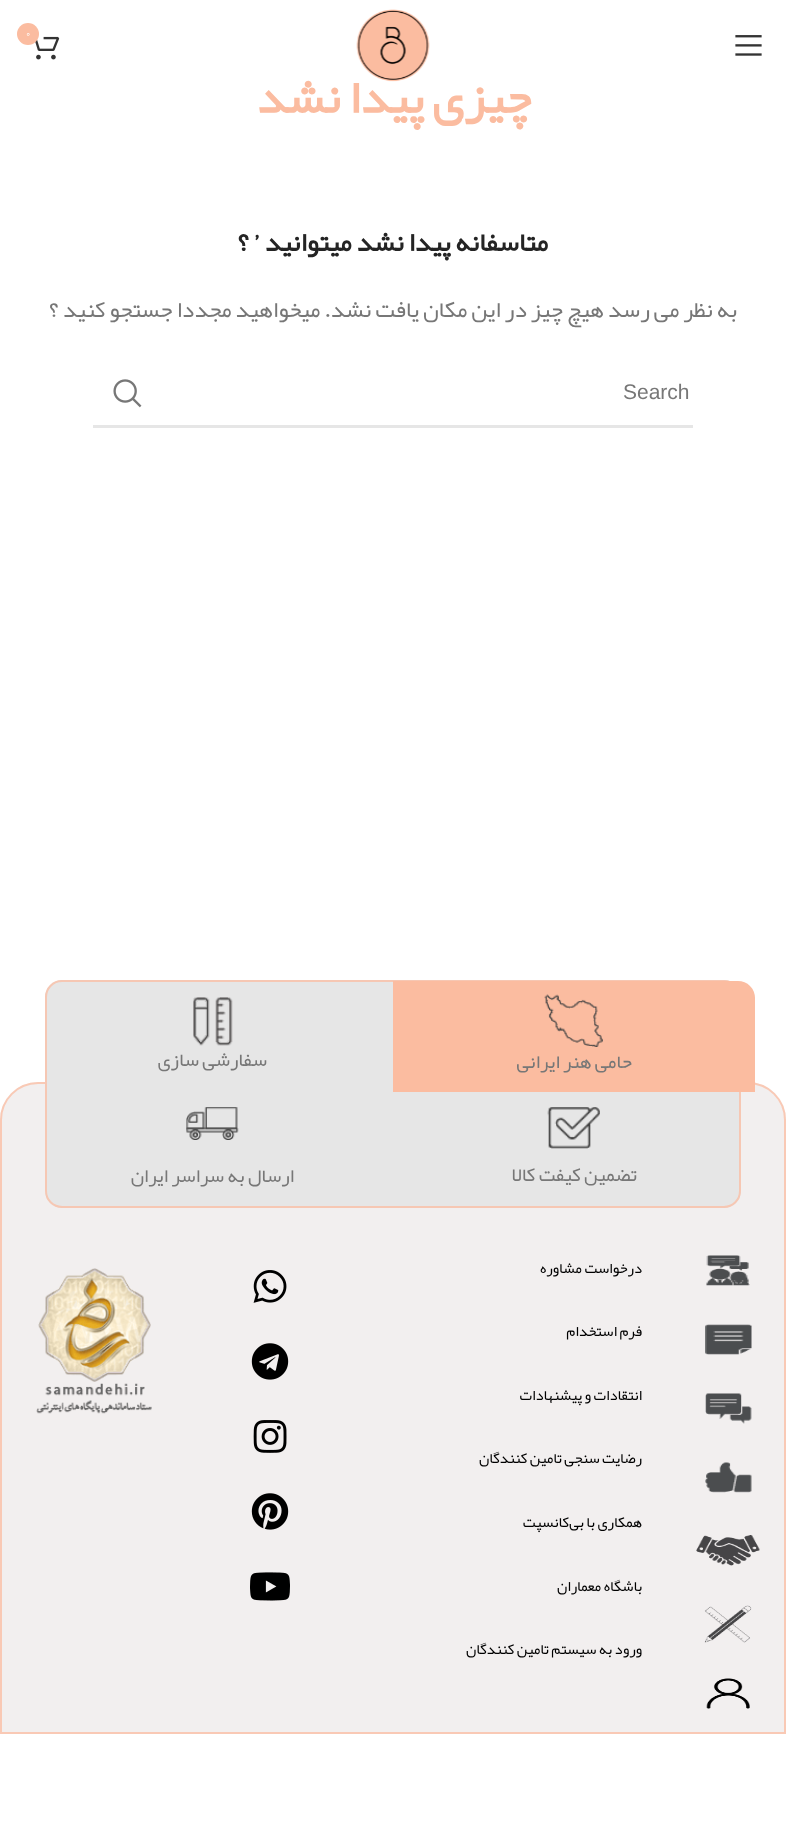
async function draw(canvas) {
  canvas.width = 786
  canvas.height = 1838
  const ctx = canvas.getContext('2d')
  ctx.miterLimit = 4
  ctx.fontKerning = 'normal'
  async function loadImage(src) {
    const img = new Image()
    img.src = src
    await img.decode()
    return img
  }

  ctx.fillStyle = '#fff'
  ctx.fillRect(0, 0, 786, 1838)
  ctx.drawImage(await loadImage('image0.png'), 356, 9, 74, 73)
  ctx.drawImage(await loadImage('image1.png'), 35, 36, 25, 24)
  ctx.fillStyle = '#fbbca0'
  ctx.beginPath()
  ctx.arc(28, 34, 11, 0, 2 * Math.PI)
  ctx.fill()
  ctx.font = '14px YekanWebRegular'
  ctx.fillStyle = '#fff'
  ctx.fillText('۰', 26, 38)
  ctx.drawImage(await loadImage('image2.png'), 735, 35, 27, 21)
  ctx.direction = 'rtl'
  ctx.font = 'bold 48px YekanWebRegular'
  ctx.fillStyle = '#fbbca0'
  ctx.fillText('چیزی پیدا نشد', 531, 113)
  ctx.font = 'bold 27px YekanWebRegular'
  ctx.fillStyle = '#242424'
  ctx.fillText('متاسفانه پیدا نشد میتوانید ’ ؟', 548, 251)
  ctx.font = '23.1px YekanWebRegular'
  ctx.fillStyle = '#777'
  ctx.fillText('به نظر می رسد هیچ چیز در این مکان یافت نشد. میخواهید مجددا جستجو کنید ؟', 737, 317)
  ctx.fillStyle = '#e6e6e6'
  ctx.fillRect(93, 425, 600, 3)
  ctx.direction = 'ltr'
  ctx.font = '21px Liberation Sans'
  ctx.fillStyle = '#777'
  ctx.fillText('Search', 623, 399)
  ctx.drawImage(await loadImage('image3.png'), 113, 379, 29, 29)
  ctx.fillStyle = '#f2efef'
  ctx.beginPath()
  ctx.roundRect(0, 1082, 786, 652, [38, 38, 0, 0])
  ctx.fill()
  ctx.beginPath()
  ctx.roundRect(1, 1083, 784, 650, [37, 37, 0, 0])
  ctx.strokeStyle = '#fbbca0bd'
  ctx.lineWidth = 2
  ctx.stroke()
  ctx.fillStyle = '#e6e6e6'
  ctx.beginPath()
  ctx.roundRect(45, 980, 696, 228, 17)
  ctx.fill()
  ctx.beginPath()
  ctx.roundRect(46, 981, 694, 226, 16)
  ctx.stroke()
  ctx.fillStyle = '#fbbca0'
  ctx.beginPath()
  ctx.roundRect(393, 981, 362, 111, [0, 17, 0, 0])
  ctx.fill()
  ctx.drawImage(await loadImage('image4.png'), 544, 994, 59, 53)
  ctx.direction = 'rtl'
  ctx.font = '19.5px YekanWebRegular'
  ctx.fillStyle = '#777'
  ctx.fillText('حامی هنر ایرانی', 632, 1068)
  ctx.drawImage(await loadImage('image5.png'), 193, 997, 40, 49)
  ctx.fillText('سفارشی سازی', 267, 1066)
  ctx.drawImage(await loadImage('image6.png'), 547, 1107, 53, 42)
  ctx.fillText('تضمین کیفت کالا', 637, 1181)
  ctx.drawImage(await loadImage('image7.png'), 186, 1107, 53, 33)
  ctx.fillText('ارسال به سراسر ایران', 294, 1182)
  ctx.drawImage(await loadImage('image8.png'), 706, 1255, 44, 31)
  ctx.drawImage(await loadImage('image9.png'), 705, 1324, 47, 31)
  ctx.drawImage(await loadImage('image10.png'), 705, 1393, 47, 31)
  ctx.drawImage(await loadImage('image11.png'), 705, 1462, 47, 31)
  ctx.drawImage(await loadImage('image12.png'), 696, 1535, 64, 31)
  ctx.drawImage(await loadImage('image13.png'), 704, 1605, 48, 38)
  ctx.drawImage(await loadImage('image14.png'), 706, 1678, 44, 31)
  ctx.font = '15px YekanWebRegular'
  ctx.fillStyle = '#000'
  ctx.fillText('درخواست مشاوره', 642, 1273)
  ctx.fillText('فرم استخدام', 642, 1336)
  ctx.fillText('انتقادات و پیشنهادات', 642, 1400)
  ctx.fillText('رضایت سنجی تامین کنندگان', 642, 1463)
  ctx.fillText('همکاری با بی‌کانسپت', 642, 1527)
  ctx.fillText('باشگاه معماران', 642, 1591)
  ctx.fillText('ورود به سیستم تامین کنندگان', 642, 1654)
  ctx.drawImage(await loadImage('image15.png'), 253, 1270, 34, 33)
  ctx.drawImage(await loadImage('image16.png'), 251, 1343, 38, 37)
  ctx.drawImage(await loadImage('image17.png'), 253, 1420, 34, 33)
  ctx.drawImage(await loadImage('image18.png'), 251, 1493, 38, 37)
  ctx.drawImage(await loadImage('image19.png'), 250, 1572, 40, 29)
  ctx.drawImage(await loadImage('image20.png'), 36, 1268, 116, 146)
}

draw(document.querySelector('canvas'))
